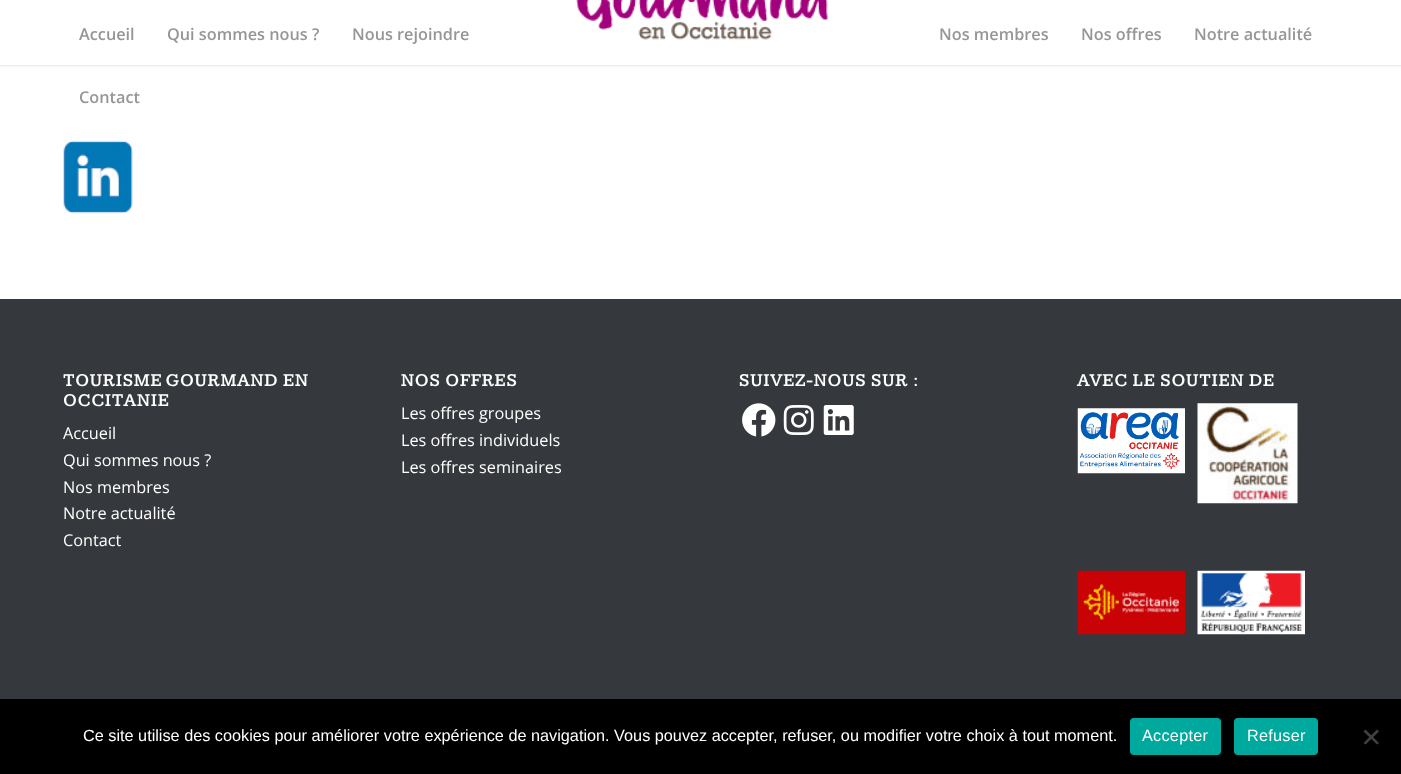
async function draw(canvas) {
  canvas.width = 1401
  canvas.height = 774
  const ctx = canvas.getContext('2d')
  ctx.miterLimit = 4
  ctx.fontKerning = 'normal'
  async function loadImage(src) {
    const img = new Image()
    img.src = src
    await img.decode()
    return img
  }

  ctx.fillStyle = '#fff'
  ctx.fillRect(0, 0, 1401, 774)
  ctx.fillStyle = '#0000001a'
  ctx.filter = 'blur(1px)'
  ctx.beginPath()
  ctx.rect(-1, -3, 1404, 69)
  ctx.fill()
  ctx.filter = 'none'
  ctx.fillStyle = '#fff'
  ctx.fillRect(0, 0, 1401, 65)
  ctx.drawImage(await loadImage('image0.png'), 576, 0, 252, 40)
  ctx.font = '600 16.25px Open Sans'
  ctx.fillStyle = '#969696'
  ctx.fillText('Accueil', 79, 40)
  ctx.fillText('Qui sommes nous ?', 167, 40)
  ctx.fillText('Nous rejoindre', 352, 40)
  ctx.fillText('Nos membres', 939, 40)
  ctx.fillText('Nos offres', 1081, 40)
  ctx.fillText('Notre actualité', 1194, 40)
  ctx.fillText('Contact', 79, 103)
  ctx.drawImage(await loadImage('image1.png'), 63, 140, 70, 74)
  ctx.fillStyle = '#35383c'
  ctx.fillRect(0, 299, 1401, 400)
  ctx.letterSpacing = '1.25px'
  ctx.font = 'bold 17.9px Kameron'
  ctx.fillStyle = '#fff'
  ctx.fillText('TOURISME GOURMAND EN', 63, 386)
  ctx.fillText('OCCITANIE', 63, 406)
  ctx.letterSpacing = '0px'
  ctx.font = '16.25px Open Sans'
  ctx.fillText('Accueil', 63, 439)
  ctx.fillText('Qui sommes nous ?', 63, 466)
  ctx.fillText('Nos membres', 63, 493)
  ctx.fillText('Notre actualité', 63, 519)
  ctx.fillText('Contact', 63, 546)
  ctx.letterSpacing = '1.25px'
  ctx.font = 'bold 17.9px Kameron'
  ctx.fillText('NOS OFFRES', 401, 386)
  ctx.letterSpacing = '0px'
  ctx.font = '16.25px Open Sans'
  ctx.fillText('Les offres groupes', 401, 419)
  ctx.fillText('Les offres individuels', 401, 446)
  ctx.fillText('Les offres seminaires', 401, 473)
  ctx.letterSpacing = '1.25px'
  ctx.font = 'bold 17.9px Kameron'
  ctx.fillText('SUIVEZ-NOUS SUR :', 739, 386)
  ctx.drawImage(await loadImage('image2.png'), 742, 403, 34, 34)
  ctx.drawImage(await loadImage('image3.png'), 783, 405, 31, 30)
  ctx.drawImage(await loadImage('image4.png'), 823, 405, 31, 30)
  ctx.fillText('AVEC LE SOUTIEN DE', 1077, 386)
  ctx.drawImage(await loadImage('image5.png'), 1077, 408, 108, 66)
  ctx.drawImage(await loadImage('image6.png'), 1197, 403, 101, 101)
  ctx.drawImage(await loadImage('image7.png'), 1077, 570, 108, 65)
  ctx.drawImage(await loadImage('image8.png'), 1197, 570, 108, 65)
  ctx.fillStyle = '#000'
  ctx.fillRect(0, 699, 1401, 75)
  ctx.letterSpacing = '0px'
  ctx.font = '16.25px Liberation Sans'
  ctx.fillStyle = '#fff'
  ctx.fillText('Ce site utilise des cookies pour améliorer votre expérience de navigation. Vous pouvez accepter, refuser, ou modifier votre choix à tout moment.', 83, 741)
  ctx.fillStyle = '#00a99d'
  ctx.beginPath()
  ctx.roundRect(1130, 718, 91, 37, 4)
  ctx.fill()
  ctx.letterSpacing = '0.25px'
  ctx.fillStyle = '#fff'
  ctx.fillText('Accepter', 1142, 741)
  ctx.fillStyle = '#00a99d'
  ctx.beginPath()
  ctx.roundRect(1234, 718, 84, 37, 4)
  ctx.fill()
  ctx.fillStyle = '#fff'
  ctx.fillText('Refuser', 1247, 741)
  ctx.fillStyle = '#404040'
  ctx.beginPath()
  ctx.moveTo(1377, 729.5)
  ctx.lineTo(1379, 731.5)
  ctx.lineTo(1365.5, 744.5)
  ctx.lineTo(1363.5, 743)
  ctx.closePath()
  ctx.fill()
  ctx.beginPath()
  ctx.moveTo(1363.5, 731.5)
  ctx.lineTo(1365.5, 729.5)
  ctx.lineTo(1379, 743)
  ctx.lineTo(1377, 744.5)
  ctx.closePath()
  ctx.fill()
}

draw(document.querySelector('canvas'))
